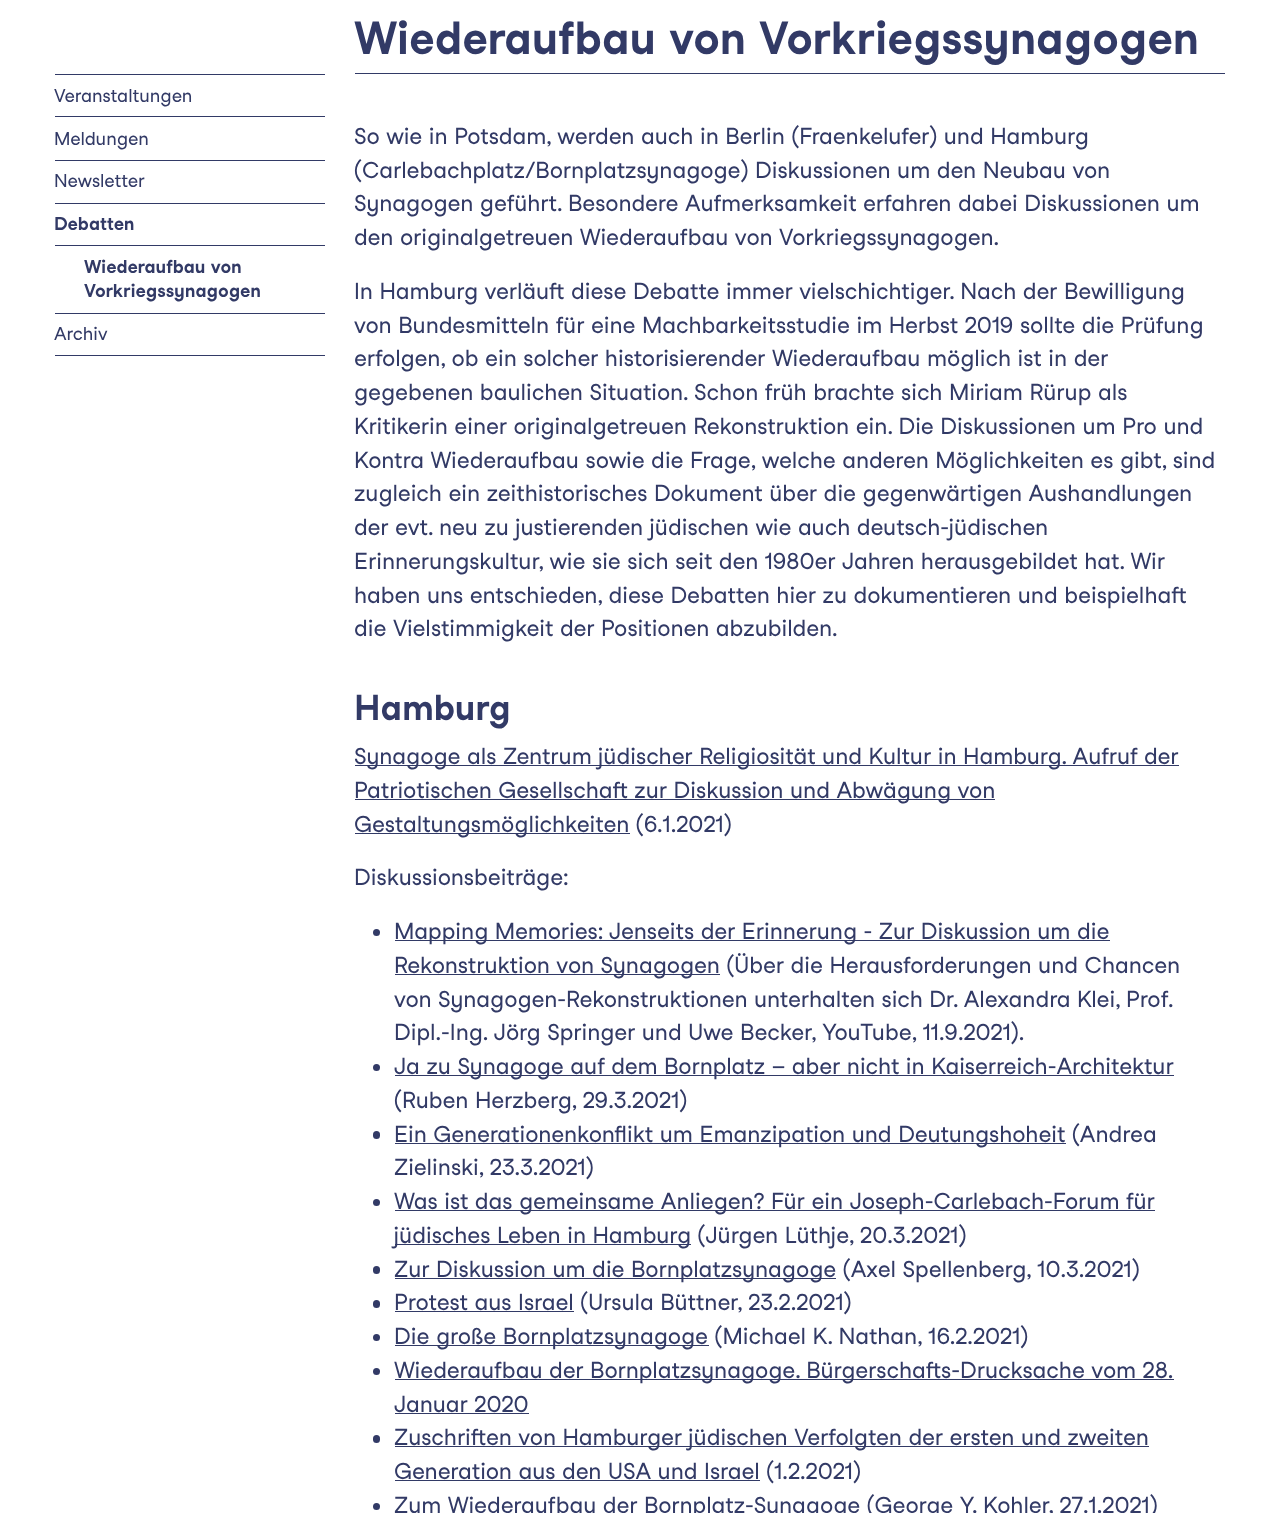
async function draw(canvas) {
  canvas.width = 1278
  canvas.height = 1513
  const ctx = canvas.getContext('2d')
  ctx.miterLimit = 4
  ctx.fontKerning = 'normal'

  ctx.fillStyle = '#fff'
  ctx.fillRect(0, 0, 1278, 1513)
  ctx.fillStyle = '#323a66'
  ctx.fillRect(55, 74, 270, 1)
  ctx.fillRect(55, 116, 270, 1)
  ctx.font = '18.1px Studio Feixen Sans'
  ctx.fillText('Veranstaltungen', 54, 102)
  ctx.fillRect(55, 160, 270, 1)
  ctx.fillText('Meldungen', 54, 145)
  ctx.fillRect(55, 203, 270, 1)
  ctx.fillText('Newsletter', 54, 187)
  ctx.fillRect(55, 245, 270, 1)
  ctx.font = 'bold 18.1px Studio Feixen Sans'
  ctx.fillText('Debatten', 54, 230)
  ctx.fillRect(55, 313, 270, 1)
  ctx.fillText('Wiederaufbau von', 84, 273)
  ctx.fillText('Vorkriegssynagogen', 84, 297)
  ctx.fillRect(55, 355, 270, 1)
  ctx.font = '18.1px Studio Feixen Sans'
  ctx.fillText('Archiv', 54, 340)
  ctx.fillRect(355, 73, 870, 1)
  ctx.font = 'bold 45px Studio Feixen Sans'
  ctx.fillText('Wiederaufbau von Vorkriegssynagogen', 354, 54)
  ctx.font = '22.5px Studio Feixen Sans'
  ctx.fillText('So wie in Potsdam, werden auch in Berlin (Fraenkelufer) und Hamburg', 354, 144)
  ctx.fillText('(Carlebachplatz/Bornplatzsynagoge) Diskussionen um den Neubau von', 354, 178)
  ctx.fillText('Synagogen geführt. Besondere Aufmerksamkeit erfahren dabei Diskussionen um', 354, 211)
  ctx.fillText('den originalgetreuen Wiederaufbau von Vorkriegssynagogen.', 354, 245)
  ctx.fillText('In Hamburg verläuft diese Debatte immer vielschichtiger. Nach der Bewilligung', 354, 299)
  ctx.fillText('von Bundesmitteln für eine Machbarkeitsstudie im Herbst 2019 sollte die Prüfung', 354, 333)
  ctx.fillText('erfolgen, ob ein solcher historisierender Wiederaufbau möglich ist in der', 354, 366)
  ctx.fillText('gegebenen baulichen Situation. Schon früh brachte sich Miriam Rürup als', 354, 400)
  ctx.fillText('Kritikerin einer originalgetreuen Rekonstruktion ein. Die Diskussionen um Pro und', 354, 434)
  ctx.fillText('Kontra Wiederaufbau sowie die Frage, welche anderen Möglichkeiten es gibt, sind', 354, 468)
  ctx.fillText('zugleich ein zeithistorisches Dokument über die gegenwärtigen Aushandlungen', 354, 501)
  ctx.fillText('der evt. neu zu justierenden jüdischen wie auch deutsch-jüdischen', 354, 535)
  ctx.fillText('Erinnerungskultur, wie sie sich seit den 1980er Jahren herausgebildet hat. Wir', 354, 569)
  ctx.fillText('haben uns entschieden, diese Debatten hier zu dokumentieren und beispielhaft', 354, 603)
  ctx.fillText('die Vielstimmigkeit der Positionen abzubilden.', 354, 636)
  ctx.font = 'bold 35px Studio Feixen Sans'
  ctx.fillText('Hamburg', 354, 720)
  ctx.fillRect(355, 765, 824, 1)
  ctx.font = '22.5px Studio Feixen Sans'
  ctx.fillText('Synagoge als Zentrum jüdischer Religiosität und Kultur in Hamburg. Aufruf der', 354, 764)
  ctx.fillRect(355, 799, 640, 1)
  ctx.fillText('Patriotischen Gesellschaft zur Diskussion und Abwägung von', 354, 798)
  ctx.fillRect(355, 833, 275, 1)
  ctx.fillText('Gestaltungsmöglichkeiten (6.1.2021)', 354, 832)
  ctx.fillText('Diskussionsbeiträge:', 354, 885)
  ctx.beginPath()
  ctx.arc(376.5, 932.5, 3.5, 0, 2 * Math.PI)
  ctx.fill()
  ctx.fillRect(395, 940, 715, 1)
  ctx.fillText('Mapping Memories: Jenseits der Erinnerung - Zur Diskussion um die', 394, 939)
  ctx.fillRect(395, 974, 325, 1)
  ctx.fillText('Rekonstruktion von Synagogen (Über die Herausforderungen und Chancen', 394, 973)
  ctx.wordSpacing = '-0.25px'
  ctx.fillText('von Synagogen-Rekonstruktionen unterhalten sich Dr. Alexandra Klei, Prof.', 394, 1007)
  ctx.wordSpacing = '0px'
  ctx.fillText('Dipl.-Ing. Jörg Springer und Uwe Becker, YouTube, 11.9.2021).', 394, 1040)
  ctx.beginPath()
  ctx.arc(376.5, 1067.5, 3.5, 0, 2 * Math.PI)
  ctx.fill()
  ctx.fillRect(395, 1075, 779, 1)
  ctx.fillText('Ja zu Synagoge auf dem Bornplatz – aber nicht in Kaiserreich-Architektur', 394, 1074)
  ctx.fillText('(Ruben Herzberg, 29.3.2021)', 394, 1108)
  ctx.beginPath()
  ctx.roundRect(373, 1131, 7, 8, 3.5)
  ctx.fill()
  ctx.fillRect(395, 1143, 671, 1)
  ctx.fillText('Ein Generationenkonflikt um Emanzipation und Deutungshoheit (Andrea', 394, 1142)
  ctx.fillText('Zielinski, 23.3.2021)', 394, 1175)
  ctx.beginPath()
  ctx.arc(376.5, 1202.5, 3.5, 0, 2 * Math.PI)
  ctx.fill()
  ctx.fillRect(395, 1210, 760, 1)
  ctx.fillText('Was ist das gemeinsame Anliegen? Für ein Joseph-Carlebach-Forum für', 394, 1209)
  ctx.fillRect(395, 1244, 296, 1)
  ctx.fillText('jüdisches Leben in Hamburg (Jürgen Lüthje, 20.3.2021)', 394, 1243)
  ctx.beginPath()
  ctx.roundRect(373, 1266, 7, 8, 3.5)
  ctx.fill()
  ctx.fillRect(395, 1278, 441, 1)
  ctx.fillText('Zur Diskussion um die Bornplatzsynagoge (Axel Spellenberg, 10.3.2021)', 394, 1277)
  ctx.beginPath()
  ctx.roundRect(373, 1300, 7, 8, 3.5)
  ctx.fill()
  ctx.fillRect(395, 1311, 179, 1)
  ctx.fillText('Protest aus Israel (Ursula Büttner, 23.2.2021)', 394, 1310)
  ctx.beginPath()
  ctx.arc(376.5, 1337.5, 3.5, 0, 2 * Math.PI)
  ctx.fill()
  ctx.fillRect(395, 1345, 314, 1)
  ctx.fillText('Die große Bornplatzsynagoge (Michael K. Nathan, 16.2.2021)', 394, 1344)
  ctx.beginPath()
  ctx.arc(376.5, 1371.5, 3.5, 0, 2 * Math.PI)
  ctx.fill()
  ctx.fillRect(395, 1379, 779, 1)
  ctx.fillText('Wiederaufbau der Bornplatzsynagoge. Bürgerschafts-Drucksache vom 28.', 394, 1378)
  ctx.fillText('Januar 2020', 394, 1412)
  ctx.fillRect(395, 1413, 134, 1)
  ctx.beginPath()
  ctx.roundRect(373, 1435, 7, 8, 3.5)
  ctx.fill()
  ctx.fillRect(395, 1446, 754, 1)
  ctx.fillText('Zuschriften von Hamburger jüdischen Verfolgten der ersten und zweiten', 394, 1445)
  ctx.fillRect(395, 1480, 365, 1)
  ctx.fillText('Generation aus den USA und Israel (1.2.2021)', 394, 1479)
  ctx.beginPath()
  ctx.arc(376.5, 1506.5, 3.5, 0, 2 * Math.PI)
  ctx.fill()
  ctx.fillText('Zum Wiederaufbau der Bornplatz-Synagoge (George Y. Kohler, 27.1.2021)', 394, 1513)
}

draw(document.querySelector('canvas'))
